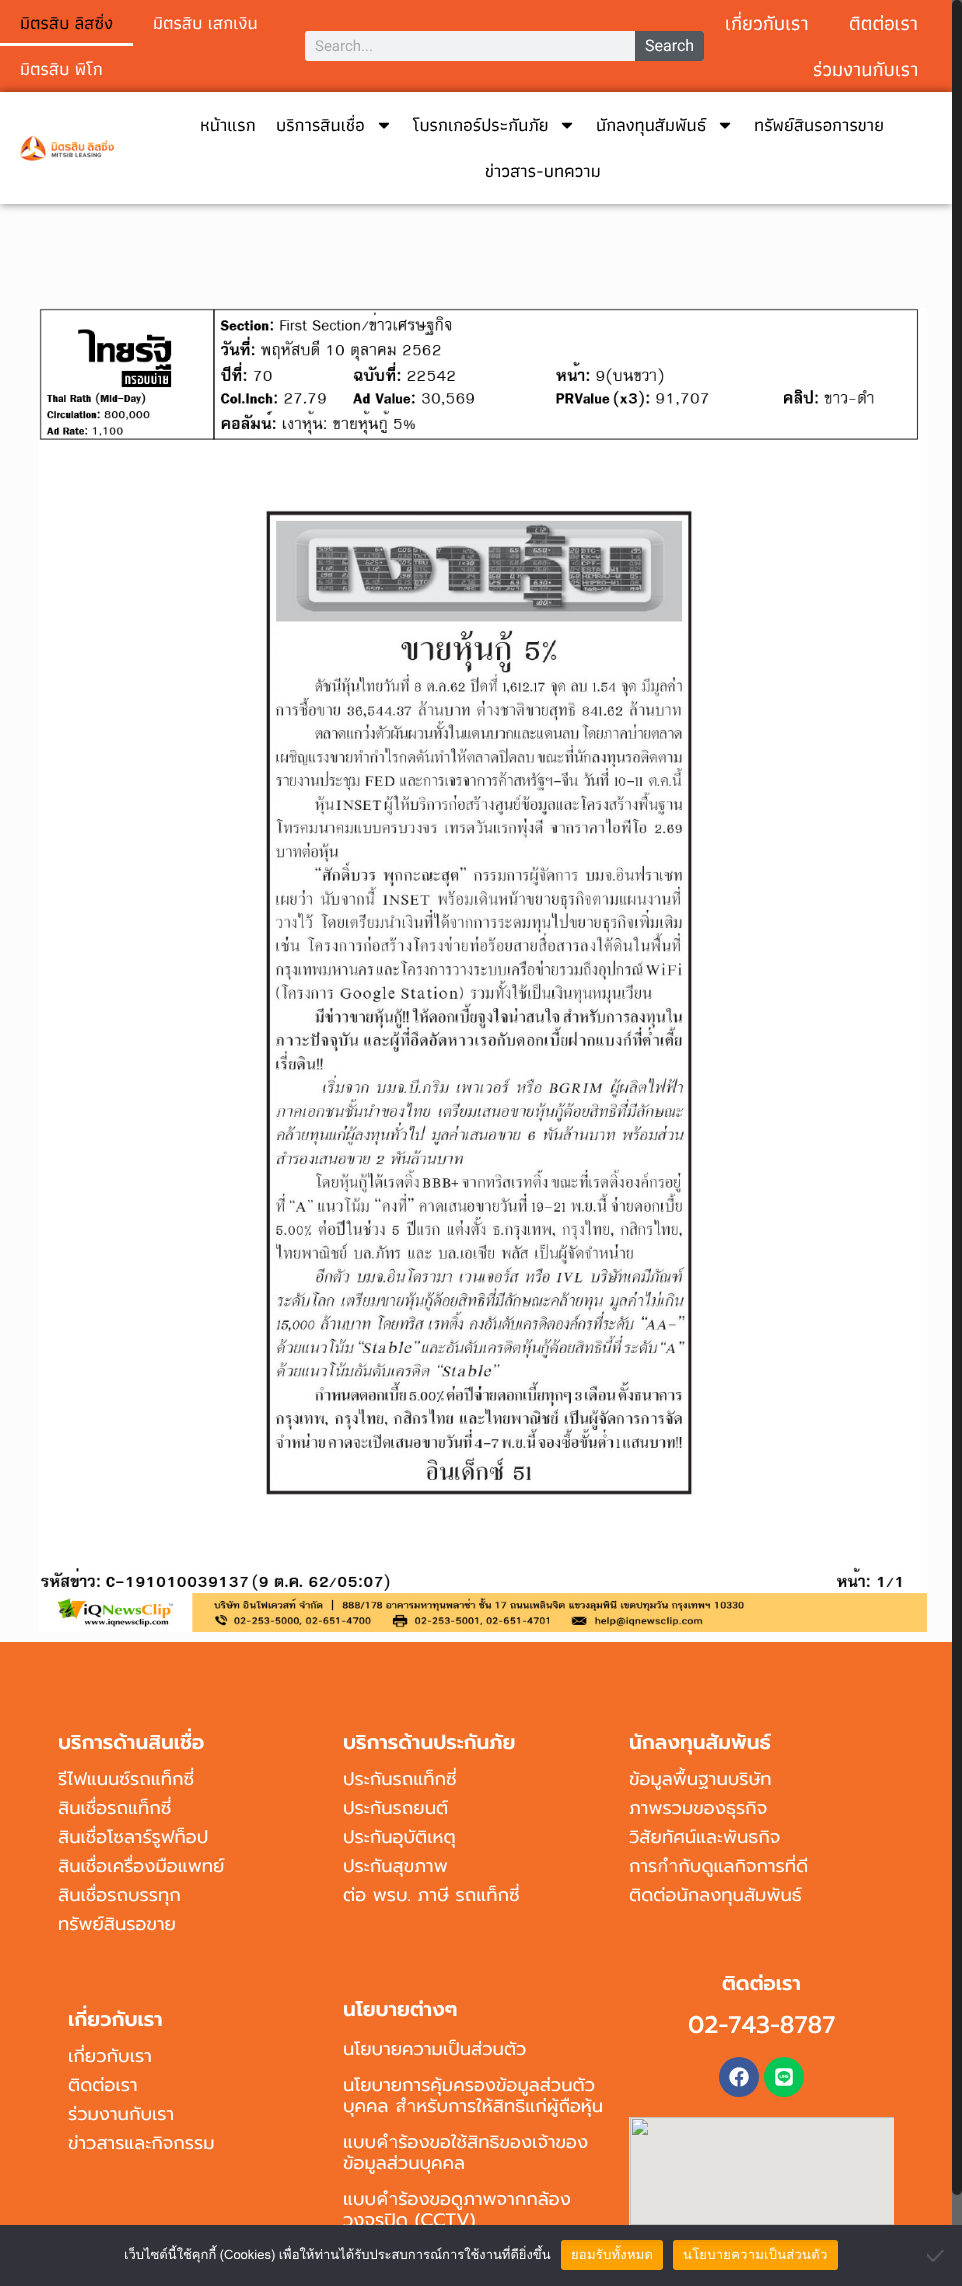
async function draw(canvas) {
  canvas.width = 962
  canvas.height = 2286
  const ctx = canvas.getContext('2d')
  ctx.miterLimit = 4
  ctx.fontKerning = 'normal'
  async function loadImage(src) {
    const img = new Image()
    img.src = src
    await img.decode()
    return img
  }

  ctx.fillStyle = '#fcfcfc'
  ctx.fillRect(0, 0, 962, 2286)
  ctx.fillStyle = '#f15a29'
  ctx.fillRect(0, 0, 952, 92)
  ctx.font = '500 18px Athiti'
  ctx.fillStyle = '#000'
  ctx.fillText('มิตรสิบ ลิสซิ่ง', 20, 29)
  ctx.fillStyle = '#fff'
  ctx.fillRect(0, 43, 133, 3)
  ctx.fillText('มิตรสิบ เสกเงิน', 153, 29)
  ctx.fillText('มิตรสิบ พิโก', 20, 75)
  ctx.fillStyle = '#f1f2f3'
  ctx.beginPath()
  ctx.roundRect(305, 31, 399, 30, 3)
  ctx.fill()
  ctx.font = '15px Roboto'
  ctx.fillStyle = '#aaa'
  ctx.fillText('Search...', 315, 51)
  ctx.fillStyle = '#54595f'
  ctx.beginPath()
  ctx.roundRect(635, 31, 69, 30, [0, 3, 3, 0])
  ctx.fill()
  ctx.fillStyle = '#00000008'
  ctx.beginPath()
  ctx.moveTo(635, 31)
  ctx.lineTo(635, 61)
  ctx.lineTo(701, 61)
  ctx.bezierCurveTo(703, 61, 704, 60, 704, 58)
  ctx.lineTo(704, 34)
  ctx.bezierCurveTo(704, 32, 703, 31, 701, 31)
  ctx.closePath()
  ctx.moveTo(636, 32)
  ctx.lineTo(636, 60)
  ctx.lineTo(703, 60)
  ctx.lineTo(703, 32)
  ctx.closePath()
  ctx.fill('evenodd')
  ctx.font = '16px Roboto'
  ctx.fillStyle = '#fff'
  ctx.fillText('Search', 645, 51)
  ctx.font = '500 20px Athiti'
  ctx.fillText('เกี่ยวกับเรา', 725, 30)
  ctx.fillText('ติตต่อเรา', 849, 30)
  ctx.fillText('ร่วมงานกับเรา', 813, 76)
  ctx.fillStyle = '#00000080'
  ctx.filter = 'blur(5px)'
  ctx.beginPath()
  ctx.rect(0, 92, 952, 112)
  ctx.fill()
  ctx.filter = 'none'
  ctx.fillStyle = '#fff'
  ctx.fillRect(0, 92, 952, 112)
  ctx.drawImage(await loadImage('image0.png'), 20, 135, 94, 26)
  ctx.font = '500 18px Athiti'
  ctx.fillStyle = '#000'
  ctx.fillText('หน้าแรก', 200, 131)
  ctx.fillText('บริการสินเชื่อ', 276, 131)
  ctx.drawImage(await loadImage('image1.png'), 378, 122, 12, 7)
  ctx.fillText('โบรกเกอร์ประกันภัย', 413, 131)
  ctx.drawImage(await loadImage('image1.png'), 561, 122, 12, 7)
  ctx.fillText('นักลงทุนสัมพันธ์', 596, 131)
  ctx.drawImage(await loadImage('image1.png'), 719, 122, 12, 7)
  ctx.fillText('ทรัพย์สินรอการขาย', 754, 131)
  ctx.fillText('ข่าวสาร-บทความ', 485, 177)
  ctx.fillStyle = '#666'
  ctx.fillRect(952, 0, 10, 2225)
  ctx.fillStyle = '#222'
  ctx.beginPath()
  ctx.roundRect(952, 0, 10, 2195, 5)
  ctx.fill()
  ctx.drawImage(await loadImage('image2.png'), 39, 308, 888, 1324)
  ctx.fillStyle = '#f36e27'
  ctx.fillRect(0, 1642, 952, 583)
  ctx.font = '600 20px Prompt'
  ctx.fillStyle = '#fff'
  ctx.fillText('บริการด้านสินเชื่อ', 58, 1749)
  ctx.font = '18px Prompt'
  ctx.fillText('รีไฟแนนซ์รถแท็กซี่', 58, 1785)
  ctx.fillText('สินเชื่อรถแท็กซี่', 58, 1814)
  ctx.fillText('สินเชื่อโซลาร์รูฟท็อป', 58, 1843)
  ctx.fillText('สินเชื่อเครื่องมือแพทย์', 58, 1872)
  ctx.fillText('สินเชื่อรถบรรทุก', 58, 1901)
  ctx.fillText('ทรัพย์สินรอขาย', 58, 1930)
  ctx.font = '600 20px Prompt'
  ctx.fillText('บริการด้านประกันภัย', 343, 1749)
  ctx.font = '18px Prompt'
  ctx.fillText('ประกันรถแท็กซี่', 343, 1785)
  ctx.fillText('ประกันรถยนต์', 343, 1814)
  ctx.fillText('ประกันอุบัติเหตุ', 343, 1843)
  ctx.fillText('ประกันสุขภาพ', 343, 1872)
  ctx.fillText('ต่อ พรบ. ภาษี รถแท็กซี่', 343, 1901)
  ctx.font = '600 20px Prompt'
  ctx.fillText('นักลงทุนสัมพันธ์', 629, 1749)
  ctx.font = '18px Prompt'
  ctx.fillText('ข้อมูลพื้นฐานบริษัท', 629, 1785)
  ctx.fillText('ภาพรวมของธุรกิจ', 629, 1814)
  ctx.fillText('วิสัยทัศน์และพันธกิจ', 629, 1843)
  ctx.fillText('การกำกับดูแลกิจการที่ดี', 629, 1872)
  ctx.fillText('ติดต่อนักลงทุนสัมพันธ์', 629, 1901)
  ctx.font = '600 20px Prompt'
  ctx.fillText('เกี่ยวกับเรา', 68, 2026)
  ctx.font = '18px Prompt'
  ctx.fillText('เกี่ยวกับเรา', 68, 2062)
  ctx.fillText('ติดต่อเรา', 68, 2091)
  ctx.fillText('ร่วมงานกับเรา', 68, 2120)
  ctx.fillText('ข่าวสารและกิจกรรม', 68, 2149)
  ctx.font = '600 20px Prompt'
  ctx.fillText('นโยบายต่างๆ', 343, 2016)
  ctx.font = '18px Prompt'
  ctx.fillText('นโยบายความเป็นส่วนตัว', 343, 2055)
  ctx.fillText('นโยบายการคุ้มครองข้อมูลส่วนตัว', 343, 2091)
  ctx.fillText('บุคคล สำหรับการให้สิทธิแก่ผู้ถือหุ้น', 343, 2112)
  ctx.fillText('แบบคำร้องขอใช้สิทธิของเจ้าของ', 343, 2148)
  ctx.fillText('ข้อมูลส่วนบุคคล', 343, 2169)
  ctx.fillText('แบบคำร้องขอดูภาพจากกล้อง', 343, 2205)
  ctx.fillText('วงจรปิด (CCTV)', 343, 2226)
  ctx.font = '600 20px Prompt'
  ctx.fillText('ติดต่อเรา', 722, 1990)
  ctx.font = '500 24px Prompt'
  ctx.fillText('02-743-8787', 688, 2033)
  ctx.fillStyle = '#3b5998'
  ctx.beginPath()
  ctx.arc(739, 2077, 20, 0, 2 * Math.PI)
  ctx.fill()
  ctx.drawImage(await loadImage('image3.png'), 729, 2067, 20, 20)
  ctx.fillStyle = '#06c755'
  ctx.beginPath()
  ctx.arc(784, 2077, 20, 0, 2 * Math.PI)
  ctx.fill()
  ctx.drawImage(await loadImage('image4.png'), 775, 2068, 18, 18)
  ctx.drawImage(await loadImage('image5.png'), 629, 2117, 265, 108)
  ctx.fillStyle = '#32323a'
  ctx.fillRect(0, 2225, 962, 61)
  ctx.wordSpacing = '-1px'
  ctx.font = '13px Loma'
  ctx.fillStyle = '#fff'
  ctx.fillText('เว็บไซต์นี้ใช้คุกกี้ (Cookies) เพื่อให้ท่านได้รับประสบการณ์การใช้งานที่ดียิ่งขึ้น', 124, 2259)
  ctx.fillStyle = '#fea200'
  ctx.beginPath()
  ctx.roundRect(561, 2240, 102, 30, 3)
  ctx.fill()
  ctx.drawImage(await loadImage('image6.png'), 561, 2240, 102, 5)
  ctx.letterSpacing = '0.25px'
  ctx.wordSpacing = '0px'
  ctx.fillStyle = '#fff'
  ctx.fillText('ยอมรับทั้งหมด', 571, 2259)
  ctx.fillStyle = '#fea200'
  ctx.beginPath()
  ctx.roundRect(673, 2240, 165, 30, 3)
  ctx.fill()
  ctx.drawImage(await loadImage('image7.png'), 673, 2240, 165, 5)
  ctx.fillStyle = '#fff'
  ctx.fillText('นโยบายความเป็นส่วนตัว', 683, 2259)
  ctx.fillStyle = '#59595d'
  ctx.beginPath()
  ctx.moveTo(942.5, 2249.5)
  ctx.lineTo(944, 2251)
  ctx.lineTo(933.5, 2262)
  ctx.lineTo(932, 2260.5)
  ctx.closePath()
  ctx.fill()
  ctx.beginPath()
  ctx.moveTo(927, 2256)
  ctx.lineTo(927, 2253)
  ctx.lineTo(934, 2260.5)
  ctx.lineTo(932.5, 2262)
  ctx.closePath()
  ctx.fill()
}

draw(document.querySelector('canvas'))
